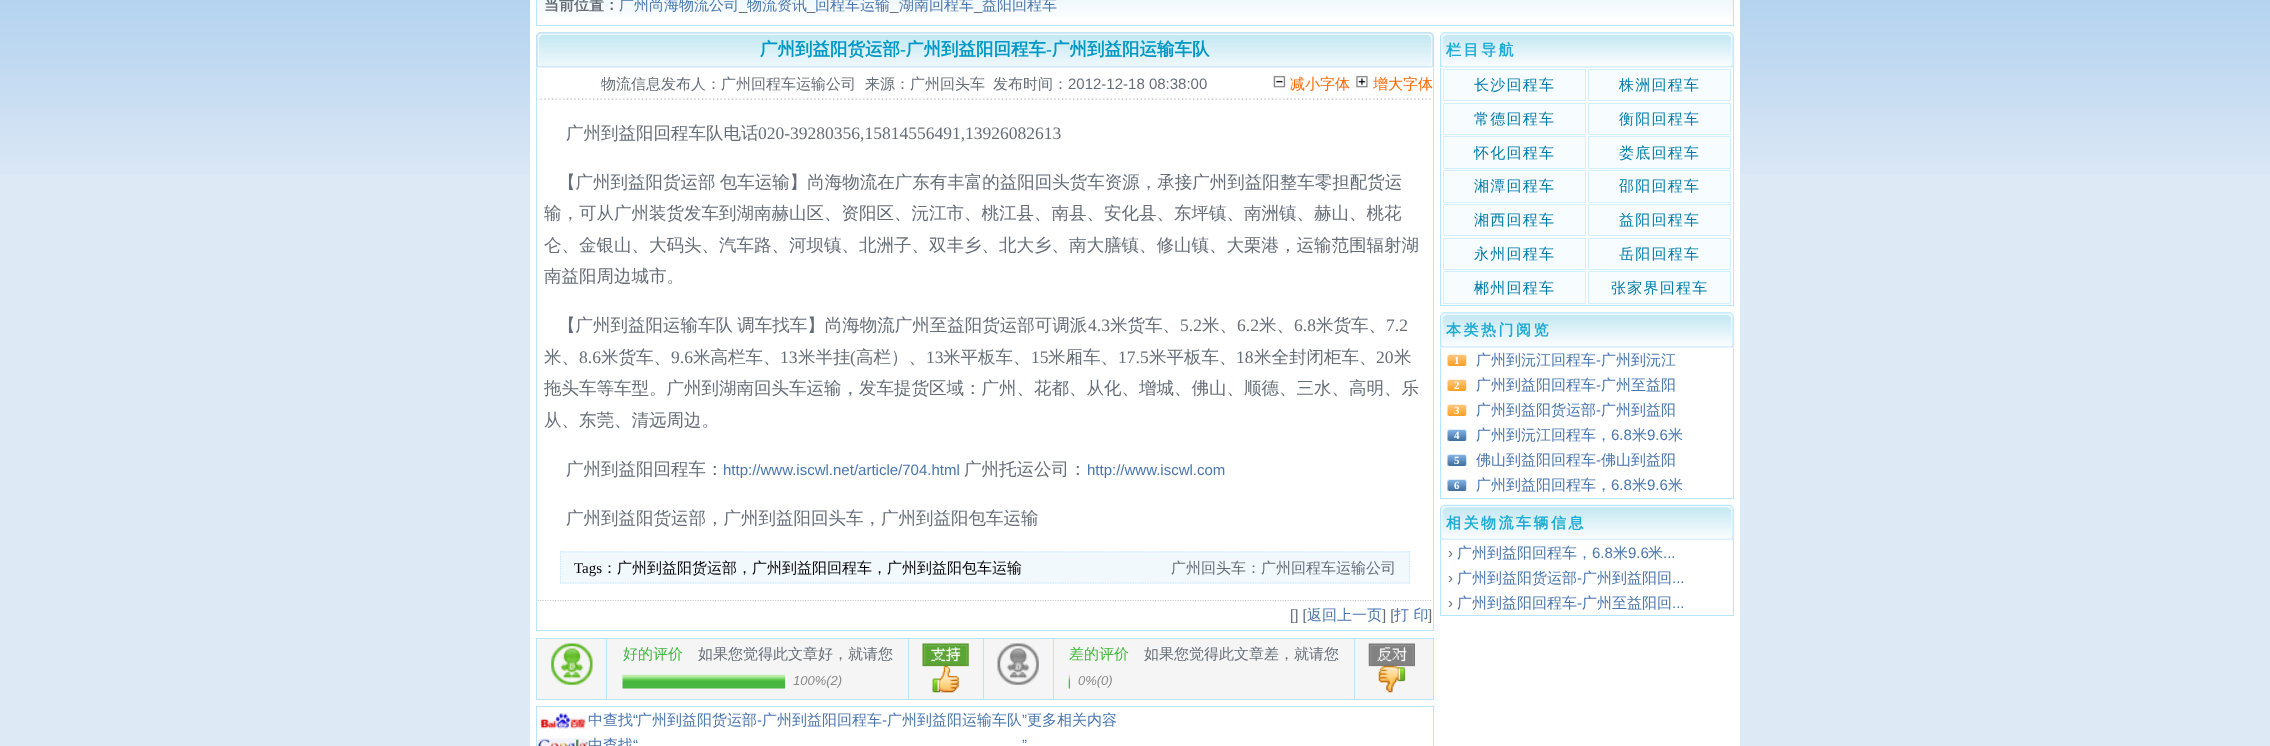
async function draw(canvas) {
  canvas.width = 2270
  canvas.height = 746
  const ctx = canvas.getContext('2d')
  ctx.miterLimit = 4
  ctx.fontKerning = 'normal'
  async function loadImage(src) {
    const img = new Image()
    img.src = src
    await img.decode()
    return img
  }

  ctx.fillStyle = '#dee9f6'
  ctx.fillRect(0, 0, 2270, 746)
  ctx.drawImage(await loadImage('image0.png'), 0, 0, 2270, 174)
  ctx.fillStyle = '#fff'
  ctx.fillRect(530, 0, 1210, 746)
  ctx.drawImage(await loadImage('image1.png'), 537, 0, 1196, 17)
  ctx.fillStyle = '#b6e6fb'
  ctx.fillRect(1733, 0, 1, 26)
  ctx.fillRect(536, 25, 1198, 1)
  ctx.fillRect(536, 0, 1, 26)
  ctx.font = 'bold 15px WenQuanYi Zen Hei'
  ctx.fillStyle = '#656d77'
  ctx.fillText('当前位置：', 544, 10)
  ctx.font = '500 15px WenQuanYi Zen Hei'
  ctx.fillStyle = '#4976ad'
  ctx.fillText('广州尚海物流公司', 619, 10)
  ctx.fillText('物流资讯', 747, 10)
  ctx.fillText('回程车运输', 815, 10)
  ctx.fillText('湖南回程车', 899, 10)
  ctx.fillText('益阳回程车', 982, 10)
  ctx.font = '15px Liberation Sans'
  ctx.fillStyle = '#656d77'
  ctx.fillText('_', 739, 10)
  ctx.fillText('_', 807, 10)
  ctx.fillText('_', 890, 10)
  ctx.fillText('_', 974, 10)
  ctx.fillStyle = '#edf6ff'
  ctx.fillRect(536, 33, 898, 35)
  ctx.drawImage(await loadImage('image2.png'), 536, 32, 898, 36)
  ctx.font = 'bold 17.5px WenQuanYi Zen Hei'
  ctx.fillStyle = '#0098c5'
  ctx.fillText('广州到益阳货运部', 760, 55)
  ctx.font = 'bold 17.5px Liberation Serif'
  ctx.fillText('-', 900, 55)
  ctx.font = 'bold 17.5px WenQuanYi Zen Hei'
  ctx.fillText('广州到益阳回程车', 906, 55)
  ctx.font = 'bold 17.5px Liberation Serif'
  ctx.fillText('-', 1046, 55)
  ctx.font = 'bold 17.5px WenQuanYi Zen Hei'
  ctx.fillText('广州到益阳运输车队', 1052, 55)
  ctx.fillStyle = '#b6e6fb'
  ctx.fillRect(1433, 68, 1, 563)
  ctx.fillRect(536, 630, 898, 1)
  ctx.fillRect(536, 68, 1, 563)
  ctx.drawImage(await loadImage('image3.png'), 538, 98, 893, 2)
  ctx.font = '500 15px WenQuanYi Zen Hei'
  ctx.fillStyle = '#656d77'
  ctx.fillText('物流信息发布人：广州回程车运输公司', 601, 89)
  ctx.fillText('来源：广州回头车', 865, 89)
  ctx.fillText('发布时间：', 993, 89)
  ctx.font = '15px Liberation Sans'
  ctx.fillText('2012-12-18 08:38:00', 1068, 89)
  ctx.drawImage(await loadImage('image4.png'), 1273, 75, 13, 13)
  ctx.font = '500 15px WenQuanYi Zen Hei'
  ctx.fillStyle = '#f60'
  ctx.fillText('减小字体', 1290, 89)
  ctx.drawImage(await loadImage('image5.png'), 1356, 75, 12, 13)
  ctx.fillText('增大字体', 1373, 89)
  ctx.font = '500 17.5px WenQuanYi Zen Hei'
  ctx.fillStyle = '#656d77'
  ctx.fillText('广州到益阳回程车队电话', 566, 139)
  ctx.font = '17.5px Liberation Serif'
  ctx.fillText('020-39280356,15814556491,13926082613', 758, 139)
  ctx.wordSpacing = '-1px'
  ctx.font = '500 17.5px WenQuanYi Zen Hei'
  ctx.fillText('【广州到益阳货运部 包车运输】尚海物流在广东有丰富的益阳回头货车资源，承接广州到益阳整车零担配货运', 558, 188)
  ctx.wordSpacing = '0px'
  ctx.fillText('输，可从广州装货发车到湖南赫山区、资阳区、沅江市、桃江县、南县、安化县、东坪镇、南洲镇、赫山、桃花', 544, 219)
  ctx.fillText('仑、金银山、大码头、汽车路、河坝镇、北洲子、双丰乡、北大乡、南大膳镇、修山镇、大栗港，运输范围辐射湖', 544, 251)
  ctx.fillText('南益阳周边城市。', 544, 282)
  ctx.wordSpacing = '-1px'
  ctx.fillText('【广州到益阳运输车队 调车找车】尚海物流广州至益阳货运部可调派', 558, 331)
  ctx.wordSpacing = '0px'
  ctx.font = '17.5px Liberation Serif'
  ctx.fillText('4.3', 1088, 331)
  ctx.font = '500 17.5px WenQuanYi Zen Hei'
  ctx.fillText('米货车、', 1110, 331)
  ctx.font = '17.5px Liberation Serif'
  ctx.fillText('5.2', 1180, 331)
  ctx.font = '500 17.5px WenQuanYi Zen Hei'
  ctx.fillText('米、', 1202, 331)
  ctx.font = '17.5px Liberation Serif'
  ctx.fillText('6.2', 1237, 331)
  ctx.font = '500 17.5px WenQuanYi Zen Hei'
  ctx.fillText('米、', 1259, 331)
  ctx.font = '17.5px Liberation Serif'
  ctx.fillText('6.8', 1294, 331)
  ctx.font = '500 17.5px WenQuanYi Zen Hei'
  ctx.fillText('米货车、', 1316, 331)
  ctx.font = '17.5px Liberation Serif'
  ctx.fillText('7.2', 1386, 331)
  ctx.font = '500 17.5px WenQuanYi Zen Hei'
  ctx.fillText('米、', 544, 363)
  ctx.font = '17.5px Liberation Serif'
  ctx.fillText('8.6', 579, 363)
  ctx.font = '500 17.5px WenQuanYi Zen Hei'
  ctx.fillText('米货车、', 601, 363)
  ctx.font = '17.5px Liberation Serif'
  ctx.fillText('9.6', 671, 363)
  ctx.font = '500 17.5px WenQuanYi Zen Hei'
  ctx.fillText('米高栏车、', 693, 363)
  ctx.font = '17.5px Liberation Serif'
  ctx.fillText('13', 780, 363)
  ctx.font = '500 17.5px WenQuanYi Zen Hei'
  ctx.fillText('米半挂', 798, 363)
  ctx.font = '17.5px Liberation Serif'
  ctx.fillText('(', 850, 363)
  ctx.font = '500 17.5px WenQuanYi Zen Hei'
  ctx.fillText('高栏）、', 856, 363)
  ctx.font = '17.5px Liberation Serif'
  ctx.fillText('13', 926, 363)
  ctx.font = '500 17.5px WenQuanYi Zen Hei'
  ctx.fillText('米平板车、', 943, 363)
  ctx.font = '17.5px Liberation Serif'
  ctx.fillText('15', 1031, 363)
  ctx.font = '500 17.5px WenQuanYi Zen Hei'
  ctx.fillText('米厢车、', 1048, 363)
  ctx.font = '17.5px Liberation Serif'
  ctx.fillText('17.5', 1118, 363)
  ctx.font = '500 17.5px WenQuanYi Zen Hei'
  ctx.fillText('米平板车、', 1149, 363)
  ctx.font = '17.5px Liberation Serif'
  ctx.fillText('18', 1236, 363)
  ctx.font = '500 17.5px WenQuanYi Zen Hei'
  ctx.fillText('米全封闭柜车、', 1254, 363)
  ctx.font = '17.5px Liberation Serif'
  ctx.fillText('20', 1376, 363)
  ctx.font = '500 17.5px WenQuanYi Zen Hei'
  ctx.fillText('米', 1394, 363)
  ctx.fillText('拖头车等车型。广州到湖南回头车运输，发车提货区域：广州、花都、从化、增城、佛山、顺德、三水、高明、乐', 544, 394)
  ctx.fillText('从、东莞、清远周边。', 544, 426)
  ctx.fillText('广州到益阳回程车：', 566, 475)
  ctx.font = '15px Liberation Sans'
  ctx.fillStyle = '#4976ad'
  ctx.fillText('http://www.iscwl.net/article/704.html', 723, 475)
  ctx.font = '500 17.5px WenQuanYi Zen Hei'
  ctx.fillStyle = '#656d77'
  ctx.fillText('广州托运公司：', 964, 475)
  ctx.font = '15px Liberation Sans'
  ctx.fillStyle = '#4976ad'
  ctx.fillText('http://www.iscwl.com', 1087, 475)
  ctx.font = '500 17.5px WenQuanYi Zen Hei'
  ctx.fillStyle = '#656d77'
  ctx.fillText('广州到益阳货运部，广州到益阳回头车，广州到益阳包车运输', 566, 524)
  ctx.fillStyle = '#f2f9fd'
  ctx.fillRect(560, 551, 850, 33)
  ctx.beginPath()
  ctx.moveTo(560, 552)
  ctx.lineTo(1410, 552)
  ctx.strokeStyle = '#cae5ff'
  ctx.lineWidth = 1.2
  ctx.setLineDash([1.25, 1.25])
  ctx.stroke()
  ctx.beginPath()
  ctx.moveTo(1409.5, 551)
  ctx.lineTo(1409.5, 584)
  ctx.stroke()
  ctx.beginPath()
  ctx.moveTo(560, 583)
  ctx.lineTo(1410, 583)
  ctx.stroke()
  ctx.beginPath()
  ctx.moveTo(560.5, 551)
  ctx.lineTo(560.5, 584)
  ctx.stroke()
  ctx.font = '15px Liberation Serif'
  ctx.fillStyle = '#000'
  ctx.fillText('Tags', 574, 573)
  ctx.font = '500 15px WenQuanYi Zen Hei'
  ctx.fillText('：广州到益阳货运部，广州到益阳回程车，广州到益阳包车运输', 602, 573)
  ctx.fillStyle = '#656d77'
  ctx.fillText('广州回头车：广州回程车运输公司', 1171, 573)
  ctx.beginPath()
  ctx.moveTo(537.5, 600.5)
  ctx.lineTo(1432.5, 600.5)
  ctx.strokeStyle = '#ccc'
  ctx.stroke()
  ctx.font = '15px Liberation Sans'
  ctx.fillText('[] [', 1290, 620)
  ctx.font = '500 15px WenQuanYi Zen Hei'
  ctx.fillStyle = '#4976ad'
  ctx.fillText('返回上一页', 1307, 620)
  ctx.font = '15px Liberation Sans'
  ctx.fillStyle = '#656d77'
  ctx.fillText('] [', 1382, 620)
  ctx.font = '500 15px WenQuanYi Zen Hei'
  ctx.fillStyle = '#4976ad'
  ctx.fillText('打 印', 1394, 620)
  ctx.font = '15px Liberation Sans'
  ctx.fillStyle = '#656d77'
  ctx.fillText(']', 1428, 620)
  ctx.fillStyle = '#f5f5f5'
  ctx.fillRect(537, 639, 896, 60)
  ctx.fillStyle = '#b6e6fb'
  ctx.fillRect(536, 638, 898, 1)
  ctx.fillRect(1433, 638, 1, 62)
  ctx.fillRect(536, 699, 898, 1)
  ctx.fillRect(536, 639, 1, 61)
  ctx.drawImage(await loadImage('image6.png'), 551, 643, 42, 42)
  ctx.fillRect(606, 639, 1, 61)
  ctx.font = '500 15px WenQuanYi Zen Hei'
  ctx.fillStyle = '#42b73f'
  ctx.fillText('好的评价', 623, 659)
  ctx.fillStyle = '#656d77'
  ctx.fillText('如果您觉得此文章好，就请您', 698, 659)
  ctx.drawImage(await loadImage('image7.png'), 622, 674, 163, 15)
  ctx.font = 'italic 13px Liberation Sans'
  ctx.fillStyle = '#888'
  ctx.fillText('100%(2)', 793, 685)
  ctx.fillStyle = '#b6e6fb'
  ctx.fillRect(908, 639, 1, 61)
  ctx.drawImage(await loadImage('image8.png'), 922, 643, 47, 50)
  ctx.fillRect(983, 639, 1, 61)
  ctx.drawImage(await loadImage('image9.png'), 997, 643, 42, 42)
  ctx.fillRect(1053, 639, 1, 61)
  ctx.font = '500 15px WenQuanYi Zen Hei'
  ctx.fillStyle = '#42b73f'
  ctx.fillText('差的评价', 1069, 659)
  ctx.fillStyle = '#656d77'
  ctx.fillText('如果您觉得此文章差，就请您', 1144, 659)
  ctx.drawImage(await loadImage('image10.png'), 1068, 674, 2, 15)
  ctx.font = 'italic 13px Liberation Sans'
  ctx.fillStyle = '#888'
  ctx.fillText('0%(0)', 1078, 685)
  ctx.fillStyle = '#b6e6fb'
  ctx.fillRect(1354, 639, 1, 61)
  ctx.drawImage(await loadImage('image11.png'), 1368, 643, 47, 50)
  ctx.strokeStyle = '#b6e6fb'
  ctx.lineWidth = 1
  ctx.setLineDash([])
  ctx.strokeRect(536.5, 706.5, 897, 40)
  ctx.drawImage(await loadImage('image12.png'), 539, 713, 47, 16)
  ctx.font = '500 15px WenQuanYi Zen Hei'
  ctx.fillStyle = '#4976ad'
  ctx.fillText('中查找', 588, 725)
  ctx.font = '15px Liberation Sans'
  ctx.fillText('“', 633, 725)
  ctx.font = '500 15px WenQuanYi Zen Hei'
  ctx.fillText('广州到益阳货运部', 637, 725)
  ctx.fillText('广州到益阳回程车', 762, 725)
  ctx.fillText('广州到益阳运输车队', 887, 725)
  ctx.font = '15px Liberation Sans'
  ctx.fillText('”', 1022, 725)
  ctx.font = '500 15px WenQuanYi Zen Hei'
  ctx.fillText('更多相关内容', 1027, 725)
  ctx.font = '15px Liberation Sans'
  ctx.fillText('-', 757, 725)
  ctx.fillText('-', 882, 725)
  ctx.drawImage(await loadImage('image13.png'), 537, 738, 51, 8)
  ctx.font = '500 15px WenQuanYi Zen Hei'
  ctx.fillText('中查找', 588, 750)
  ctx.font = '15px Liberation Sans'
  ctx.fillText('“', 633, 750)
  ctx.fillText('”', 1022, 750)
  ctx.fillStyle = '#edf6ff'
  ctx.fillRect(1440, 33, 294, 35)
  ctx.drawImage(await loadImage('image14.png'), 1440, 32, 294, 36)
  ctx.letterSpacing = '2.5px'
  ctx.font = 'bold 15px WenQuanYi Zen Hei'
  ctx.fillStyle = '#1fabd3'
  ctx.fillText('栏目导航', 1446, 55)
  ctx.fillStyle = '#b6e6fb'
  ctx.fillRect(1733, 68, 1, 238)
  ctx.fillRect(1440, 305, 294, 1)
  ctx.fillRect(1440, 68, 1, 238)
  ctx.fillStyle = '#f7fcff'
  ctx.beginPath()
  ctx.rect(1443.5, 69.5, 142, 31)
  ctx.fill()
  ctx.strokeStyle = '#d2effb'
  ctx.stroke()
  ctx.letterSpacing = '1.25px'
  ctx.font = '500 15px WenQuanYi Zen Hei'
  ctx.fillStyle = '#007ba8'
  ctx.fillText('长沙回程车', 1474, 90)
  ctx.fillStyle = '#f7fcff'
  ctx.beginPath()
  ctx.rect(1588.5, 69.5, 142, 31)
  ctx.fill()
  ctx.stroke()
  ctx.fillStyle = '#007ba8'
  ctx.fillText('株洲回程车', 1619, 90)
  ctx.fillStyle = '#f7fcff'
  ctx.beginPath()
  ctx.rect(1443.5, 103.5, 142, 31)
  ctx.fill()
  ctx.stroke()
  ctx.fillStyle = '#007ba8'
  ctx.fillText('常德回程车', 1474, 124)
  ctx.fillStyle = '#f7fcff'
  ctx.beginPath()
  ctx.rect(1588.5, 103.5, 142, 31)
  ctx.fill()
  ctx.stroke()
  ctx.fillStyle = '#007ba8'
  ctx.fillText('衡阳回程车', 1619, 124)
  ctx.fillStyle = '#f7fcff'
  ctx.beginPath()
  ctx.rect(1443.5, 136.5, 142, 32)
  ctx.fill()
  ctx.stroke()
  ctx.fillStyle = '#007ba8'
  ctx.fillText('怀化回程车', 1474, 158)
  ctx.fillStyle = '#f7fcff'
  ctx.beginPath()
  ctx.rect(1588.5, 136.5, 142, 32)
  ctx.fill()
  ctx.stroke()
  ctx.fillStyle = '#007ba8'
  ctx.fillText('娄底回程车', 1619, 158)
  ctx.fillStyle = '#f7fcff'
  ctx.beginPath()
  ctx.rect(1443.5, 170.5, 142, 32)
  ctx.fill()
  ctx.stroke()
  ctx.fillStyle = '#007ba8'
  ctx.fillText('湘潭回程车', 1474, 191)
  ctx.fillStyle = '#f7fcff'
  ctx.beginPath()
  ctx.rect(1588.5, 170.5, 142, 32)
  ctx.fill()
  ctx.stroke()
  ctx.fillStyle = '#007ba8'
  ctx.fillText('邵阳回程车', 1619, 191)
  ctx.fillStyle = '#f7fcff'
  ctx.beginPath()
  ctx.rect(1443.5, 204.5, 142, 31)
  ctx.fill()
  ctx.stroke()
  ctx.fillStyle = '#007ba8'
  ctx.fillText('湘西回程车', 1474, 225)
  ctx.fillStyle = '#f7fcff'
  ctx.beginPath()
  ctx.rect(1588.5, 204.5, 142, 31)
  ctx.fill()
  ctx.stroke()
  ctx.fillStyle = '#007ba8'
  ctx.fillText('益阳回程车', 1619, 225)
  ctx.fillStyle = '#f7fcff'
  ctx.beginPath()
  ctx.rect(1443.5, 238.5, 142, 31)
  ctx.fill()
  ctx.stroke()
  ctx.fillStyle = '#007ba8'
  ctx.fillText('永州回程车', 1474, 259)
  ctx.fillStyle = '#f7fcff'
  ctx.beginPath()
  ctx.rect(1588.5, 238.5, 142, 31)
  ctx.fill()
  ctx.stroke()
  ctx.fillStyle = '#007ba8'
  ctx.fillText('岳阳回程车', 1619, 259)
  ctx.fillStyle = '#f7fcff'
  ctx.beginPath()
  ctx.rect(1443.5, 271.5, 142, 32)
  ctx.fill()
  ctx.stroke()
  ctx.fillStyle = '#007ba8'
  ctx.fillText('郴州回程车', 1474, 293)
  ctx.fillStyle = '#f7fcff'
  ctx.beginPath()
  ctx.rect(1588.5, 271.5, 142, 32)
  ctx.fill()
  ctx.stroke()
  ctx.fillStyle = '#007ba8'
  ctx.fillText('张家界回程车', 1611, 293)
  ctx.fillStyle = '#edf6ff'
  ctx.fillRect(1440, 313, 294, 35)
  ctx.drawImage(await loadImage('image14.png'), 1440, 312, 294, 36)
  ctx.letterSpacing = '2.5px'
  ctx.font = 'bold 15px WenQuanYi Zen Hei'
  ctx.fillStyle = '#1fabd3'
  ctx.fillText('本类热门阅览', 1446, 335)
  ctx.fillStyle = '#b6e6fb'
  ctx.fillRect(1733, 348, 1, 151)
  ctx.fillRect(1440, 498, 294, 1)
  ctx.fillRect(1440, 348, 1, 151)
  ctx.drawImage(await loadImage('image15.png'), 1447, 354, 20, 12)
  ctx.letterSpacing = '0px'
  ctx.font = 'bold 11px Liberation Serif'
  ctx.fillStyle = '#fff'
  ctx.fillText('1', 1454, 364)
  ctx.font = '500 15px WenQuanYi Zen Hei'
  ctx.fillStyle = '#4976ad'
  ctx.fillText('广州到沅江回程车', 1476, 365)
  ctx.font = '15px Liberation Sans'
  ctx.fillText('-', 1596, 365)
  ctx.font = '500 15px WenQuanYi Zen Hei'
  ctx.fillText('广州到沅江', 1601, 365)
  ctx.drawImage(await loadImage('image15.png'), 1447, 379, 20, 12)
  ctx.font = 'bold 11px Liberation Serif'
  ctx.fillStyle = '#fff'
  ctx.fillText('2', 1454, 389)
  ctx.font = '500 15px WenQuanYi Zen Hei'
  ctx.fillStyle = '#4976ad'
  ctx.fillText('广州到益阳回程车', 1476, 390)
  ctx.font = '15px Liberation Sans'
  ctx.fillText('-', 1596, 390)
  ctx.font = '500 15px WenQuanYi Zen Hei'
  ctx.fillText('广州至益阳', 1601, 390)
  ctx.drawImage(await loadImage('image15.png'), 1447, 404, 20, 12)
  ctx.font = 'bold 11px Liberation Serif'
  ctx.fillStyle = '#fff'
  ctx.fillText('3', 1454, 414)
  ctx.font = '500 15px WenQuanYi Zen Hei'
  ctx.fillStyle = '#4976ad'
  ctx.fillText('广州到益阳货运部', 1476, 415)
  ctx.font = '15px Liberation Sans'
  ctx.fillText('-', 1596, 415)
  ctx.font = '500 15px WenQuanYi Zen Hei'
  ctx.fillText('广州到益阳', 1601, 415)
  ctx.drawImage(await loadImage('image16.png'), 1447, 429, 20, 12)
  ctx.font = 'bold 11px Liberation Serif'
  ctx.fillStyle = '#fff'
  ctx.fillText('4', 1454, 439)
  ctx.font = '500 15px WenQuanYi Zen Hei'
  ctx.fillStyle = '#4976ad'
  ctx.fillText('广州到沅江回程车，', 1476, 440)
  ctx.font = '15px Liberation Sans'
  ctx.fillText('6.8', 1611, 440)
  ctx.font = '500 15px WenQuanYi Zen Hei'
  ctx.fillText('米', 1632, 440)
  ctx.font = '15px Liberation Sans'
  ctx.fillText('9.6', 1647, 440)
  ctx.font = '500 15px WenQuanYi Zen Hei'
  ctx.fillText('米', 1668, 440)
  ctx.drawImage(await loadImage('image16.png'), 1447, 454, 20, 12)
  ctx.font = 'bold 11px Liberation Serif'
  ctx.fillStyle = '#fff'
  ctx.fillText('5', 1454, 464)
  ctx.font = '500 15px WenQuanYi Zen Hei'
  ctx.fillStyle = '#4976ad'
  ctx.fillText('佛山到益阳回程车', 1476, 465)
  ctx.font = '15px Liberation Sans'
  ctx.fillText('-', 1596, 465)
  ctx.font = '500 15px WenQuanYi Zen Hei'
  ctx.fillText('佛山到益阳', 1601, 465)
  ctx.drawImage(await loadImage('image16.png'), 1447, 479, 20, 12)
  ctx.font = 'bold 11px Liberation Serif'
  ctx.fillStyle = '#fff'
  ctx.fillText('6', 1454, 489)
  ctx.font = '500 15px WenQuanYi Zen Hei'
  ctx.fillStyle = '#4976ad'
  ctx.fillText('广州到益阳回程车，', 1476, 490)
  ctx.font = '15px Liberation Sans'
  ctx.fillText('6.8', 1611, 490)
  ctx.font = '500 15px WenQuanYi Zen Hei'
  ctx.fillText('米', 1632, 490)
  ctx.font = '15px Liberation Sans'
  ctx.fillText('9.6', 1647, 490)
  ctx.font = '500 15px WenQuanYi Zen Hei'
  ctx.fillText('米', 1668, 490)
  ctx.fillStyle = '#edf6ff'
  ctx.fillRect(1440, 505, 294, 35)
  ctx.drawImage(await loadImage('image17.png'), 1440, 504, 294, 36)
  ctx.letterSpacing = '2.5px'
  ctx.font = 'bold 15px WenQuanYi Zen Hei'
  ctx.fillStyle = '#1fabd3'
  ctx.fillText('相关物流车辆信息', 1446, 528)
  ctx.fillStyle = '#b6e6fb'
  ctx.fillRect(1733, 540, 1, 76)
  ctx.fillRect(1440, 615, 294, 1)
  ctx.fillRect(1440, 540, 1, 76)
  ctx.letterSpacing = '0px'
  ctx.font = '15px Liberation Sans'
  ctx.fillStyle = '#656d77'
  ctx.fillText('›', 1448, 558)
  ctx.font = '500 15px WenQuanYi Zen Hei'
  ctx.fillStyle = '#4976ad'
  ctx.fillText('广州到益阳回程车，', 1457, 558)
  ctx.font = '15px Liberation Sans'
  ctx.fillText('6.8', 1592, 558)
  ctx.font = '500 15px WenQuanYi Zen Hei'
  ctx.fillText('米', 1613, 558)
  ctx.font = '15px Liberation Sans'
  ctx.fillText('9.6', 1628, 558)
  ctx.font = '500 15px WenQuanYi Zen Hei'
  ctx.fillText('米', 1648, 558)
  ctx.font = '15px Liberation Sans'
  ctx.fillText('...', 1663, 558)
  ctx.fillStyle = '#656d77'
  ctx.fillText('›', 1448, 583)
  ctx.font = '500 15px WenQuanYi Zen Hei'
  ctx.fillStyle = '#4976ad'
  ctx.fillText('广州到益阳货运部', 1457, 583)
  ctx.font = '15px Liberation Sans'
  ctx.fillText('-', 1577, 583)
  ctx.font = '500 15px WenQuanYi Zen Hei'
  ctx.fillText('广州到益阳回', 1582, 583)
  ctx.font = '15px Liberation Sans'
  ctx.fillText('...', 1672, 583)
  ctx.fillStyle = '#656d77'
  ctx.fillText('›', 1448, 608)
  ctx.font = '500 15px WenQuanYi Zen Hei'
  ctx.fillStyle = '#4976ad'
  ctx.fillText('广州到益阳回程车', 1457, 608)
  ctx.font = '15px Liberation Sans'
  ctx.fillText('-', 1577, 608)
  ctx.font = '500 15px WenQuanYi Zen Hei'
  ctx.fillText('广州至益阳回', 1582, 608)
  ctx.font = '15px Liberation Sans'
  ctx.fillText('...', 1672, 608)
}

draw(document.querySelector('canvas'))
